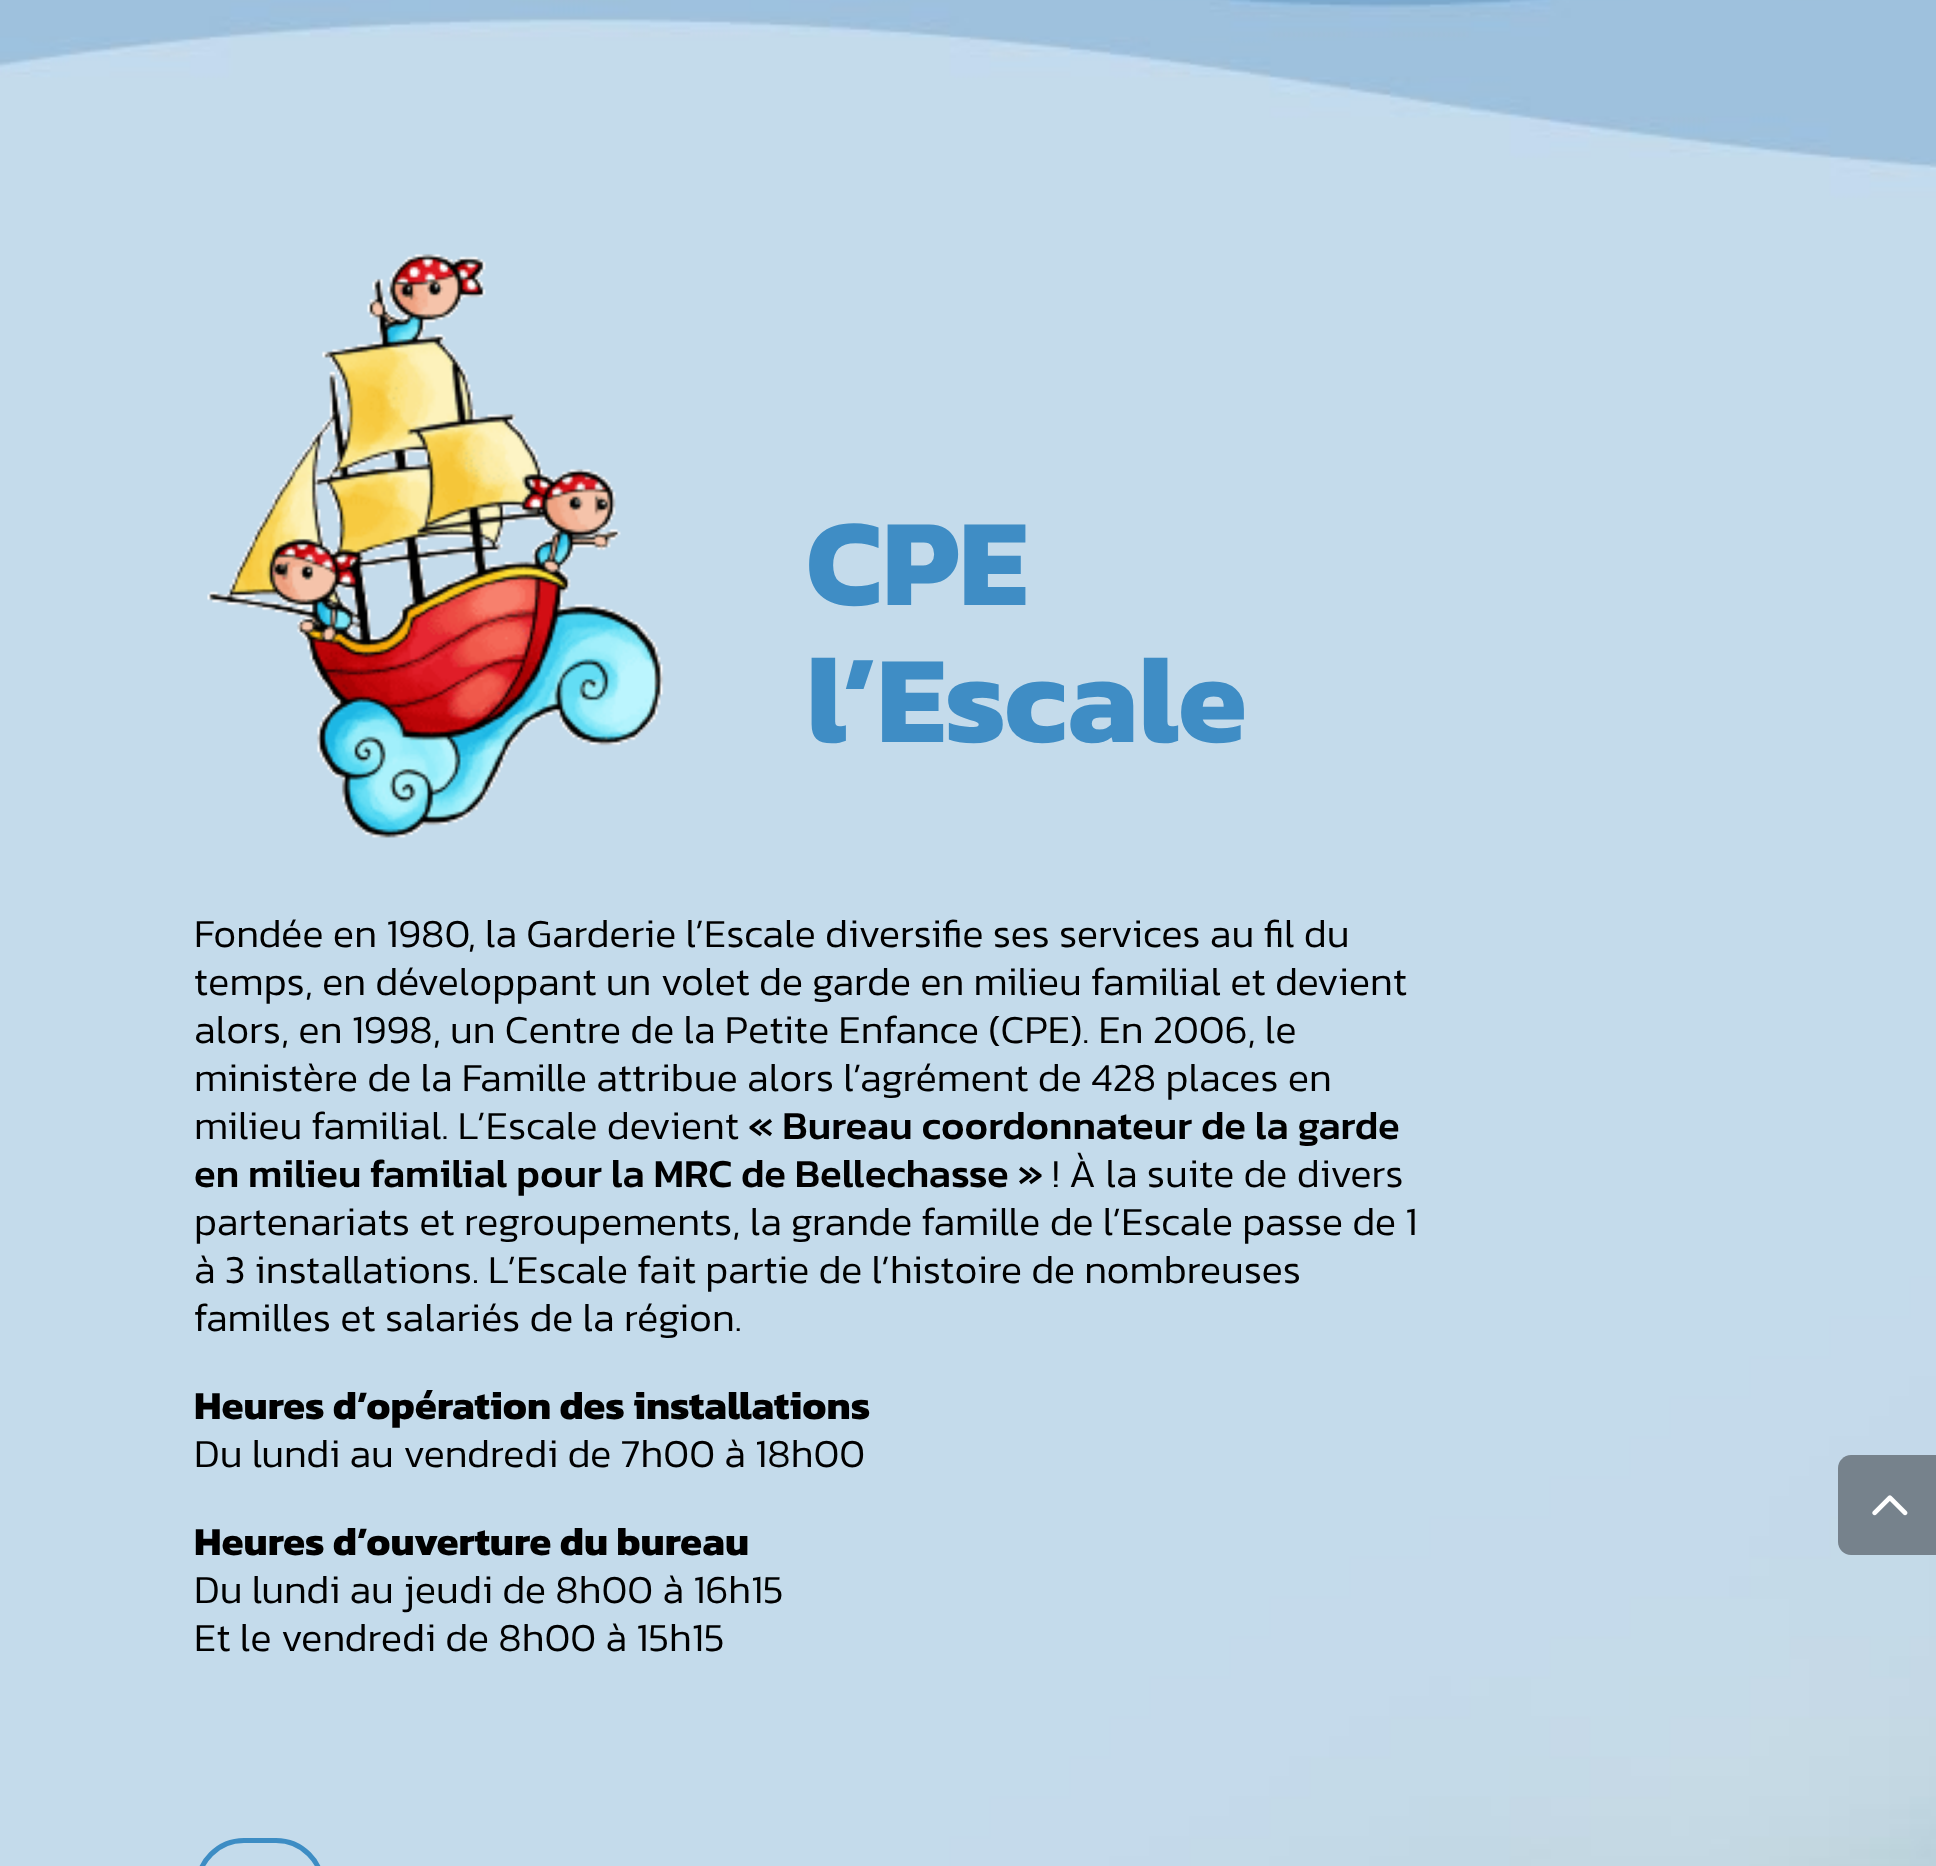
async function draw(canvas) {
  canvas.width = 1936
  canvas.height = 1866
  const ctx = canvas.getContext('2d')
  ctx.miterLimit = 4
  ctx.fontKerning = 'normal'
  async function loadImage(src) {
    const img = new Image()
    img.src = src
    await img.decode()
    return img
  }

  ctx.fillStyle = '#fff'
  ctx.fillRect(0, 0, 1936, 1866)
  ctx.drawImage(await loadImage('image0.png'), 0, 0, 1936, 1866)
  ctx.drawImage(await loadImage('image1.png'), 207, 253, 457, 585)
  ctx.font = 'bold 125px Kanit'
  ctx.fillStyle = '#3f8dc5'
  ctx.fillText('CPE', 806, 605)
  ctx.fillText('l’Escale', 806, 742)
  ctx.font = '300 40px Kanit'
  ctx.fillStyle = '#000'
  ctx.fillText('Fondée en 1980, la Garderie l’Escale diversifie ses services au fil du', 194, 947)
  ctx.fillText('temps, en développant un volet de garde en milieu familial et devient', 194, 995)
  ctx.fillText('alors, en 1998, un Centre de la Petite Enfance (CPE). En 2006, le', 194, 1043)
  ctx.fillText('ministère de la Famille attribue alors l’agrément de 428 places en', 194, 1091)
  ctx.fillText('milieu familial. L’Escale devient', 194, 1139)
  ctx.font = '500 40px Kanit'
  ctx.fillText('« Bureau coordonnateur de la garde', 748, 1139)
  ctx.fillText('en milieu familial pour la MRC de Bellechasse »', 194, 1187)
  ctx.font = '300 40px Kanit'
  ctx.fillText('! À la suite de divers', 1052, 1187)
  ctx.fillText('partenariats et regroupements, la grande famille de l’Escale passe de 1', 194, 1235)
  ctx.fillText('à 3 installations. L’Escale fait partie de l’histoire de nombreuses', 194, 1283)
  ctx.fillText('familles et salariés de la région.', 194, 1331)
  ctx.font = 'bold 40px Kanit'
  ctx.fillText('Heures d’opération des installations', 194, 1419)
  ctx.font = '300 40px Kanit'
  ctx.fillText('Du lundi au vendredi de 7h00 à 18h00', 194, 1467)
  ctx.font = 'bold 40px Kanit'
  ctx.fillText('Heures d’ouverture du bureau', 194, 1555)
  ctx.font = '300 40px Kanit'
  ctx.fillText('Du lundi au jeudi de 8h00 à 16h15', 194, 1603)
  ctx.fillText('Et le vendredi de 8h00 à 15h15', 194, 1651)
  ctx.beginPath()
  ctx.roundRect(197.5, 1840.5, 125, 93, 62.5)
  ctx.strokeStyle = '#3d8dc4'
  ctx.lineWidth = 5
  ctx.stroke()
  ctx.fillStyle = '#76828c'
  ctx.beginPath()
  ctx.moveTo(1851, 1455)
  ctx.lineTo(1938, 1455)
  ctx.lineTo(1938, 1555)
  ctx.lineTo(1851, 1555)
  ctx.bezierCurveTo(1844, 1555, 1838, 1549, 1838, 1542)
  ctx.lineTo(1838, 1468)
  ctx.bezierCurveTo(1838, 1461, 1844, 1455, 1851, 1455)
  ctx.closePath()
  ctx.fill()
  ctx.drawImage(await loadImage('image2.png'), 1872, 1495, 36, 21)
}

draw(document.querySelector('canvas'))
